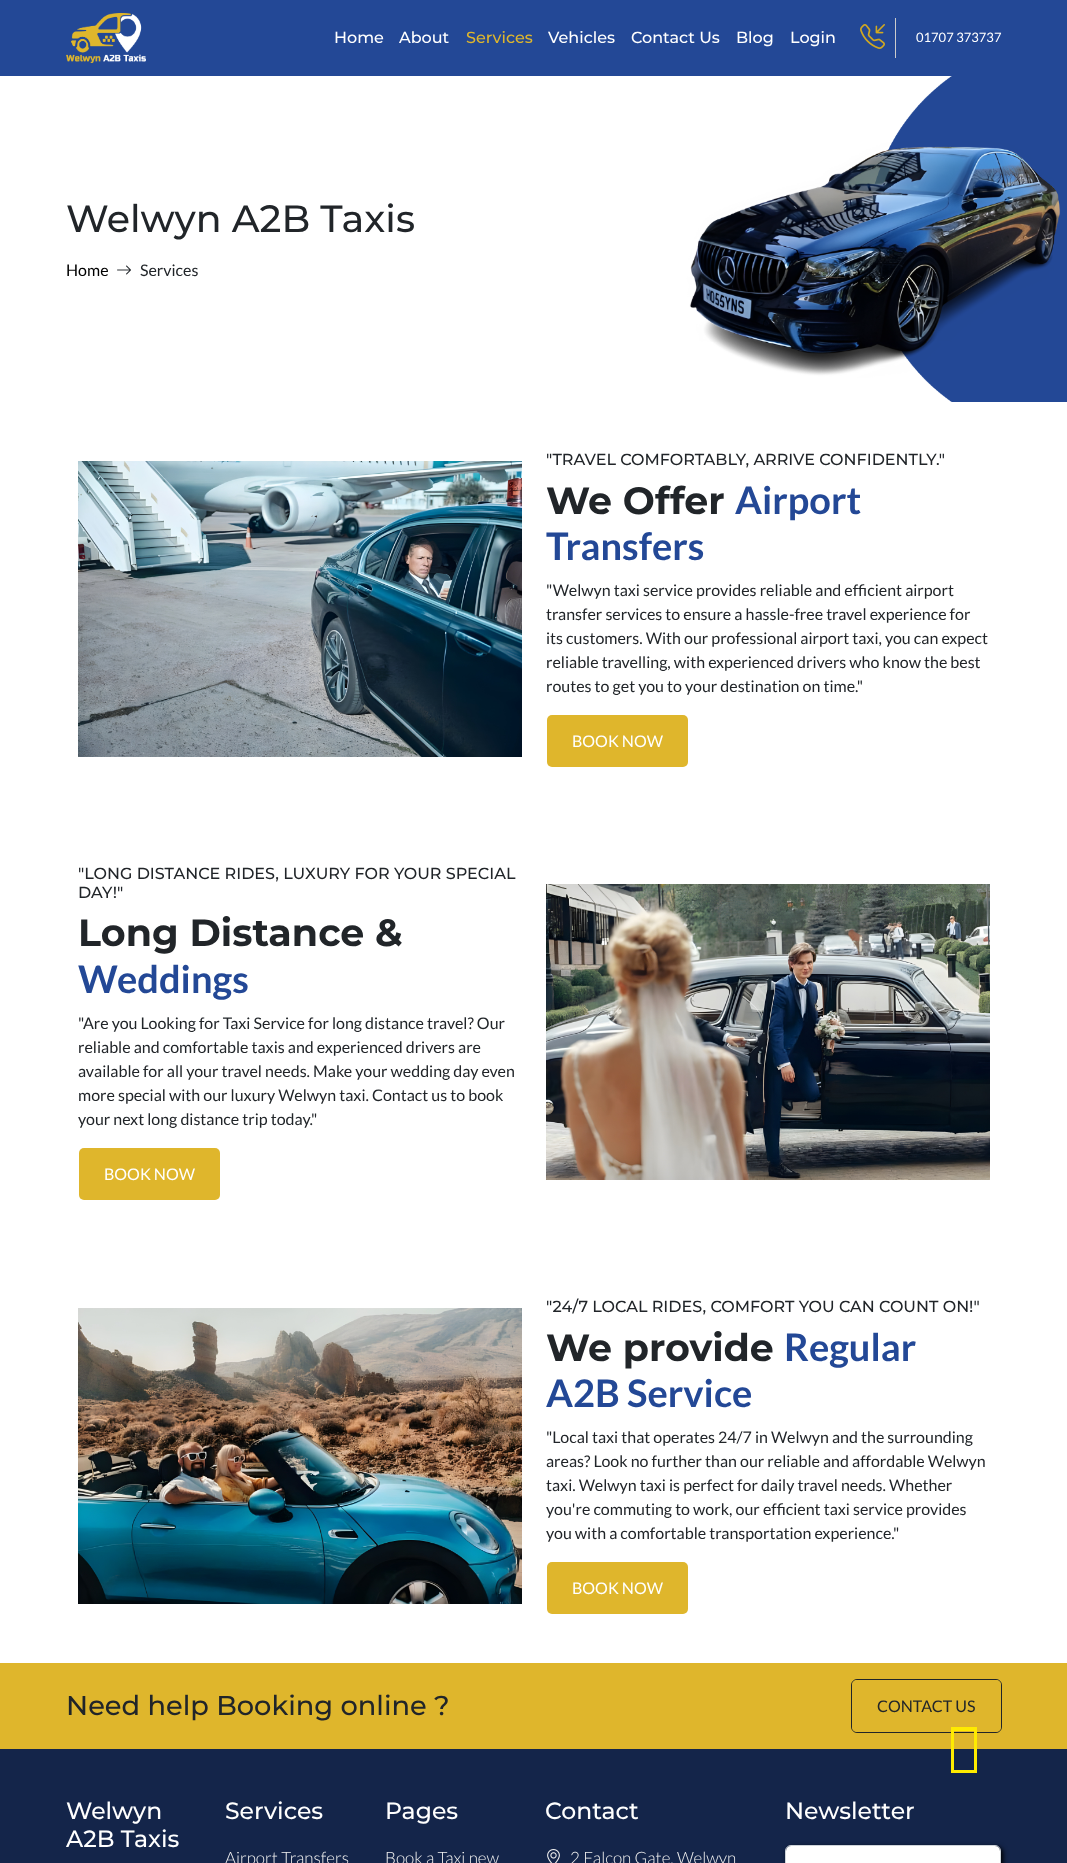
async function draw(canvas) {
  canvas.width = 1067
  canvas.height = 1863
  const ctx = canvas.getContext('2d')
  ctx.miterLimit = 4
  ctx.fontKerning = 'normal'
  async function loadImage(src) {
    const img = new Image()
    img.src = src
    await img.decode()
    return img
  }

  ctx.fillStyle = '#fff'
  ctx.fillRect(0, 0, 1067, 1863)
  ctx.fillStyle = '#234896'
  ctx.fillRect(0, 0, 1067, 76)
  ctx.drawImage(await loadImage('image0.png'), 66, 13, 80, 50)
  ctx.font = '500 16px Montserrat'
  ctx.fillStyle = '#fff'
  ctx.fillText('Home', 334, 43)
  ctx.fillText('About', 399, 43)
  ctx.fillStyle = '#dfb62c'
  ctx.fillText('Services', 466, 43)
  ctx.fillStyle = '#fff'
  ctx.fillText('Vehicles', 548, 43)
  ctx.fillText('Contact Us', 631, 43)
  ctx.fillText('Blog', 736, 43)
  ctx.fillText('Login', 790, 43)
  ctx.fillStyle = '#ccc'
  ctx.fillRect(895, 18, 1, 40)
  ctx.drawImage(await loadImage('image1.png'), 860, 24, 25, 25)
  ctx.font = '13px Lato'
  ctx.fillStyle = '#fff'
  ctx.fillText('01707 373737', 916, 42)
  ctx.drawImage(await loadImage('image2.png'), 0, 76, 1067, 326)
  ctx.font = '500 38px Montserrat'
  ctx.fillStyle = '#212529'
  ctx.fillText('Welwyn A2B Taxis', 66, 232)
  ctx.font = '16px Lato'
  ctx.fillStyle = '#000'
  ctx.fillText('Home', 66, 276)
  ctx.drawImage(await loadImage('image3.png'), 117, 265, 14, 10)
  ctx.fillStyle = '#212529'
  ctx.fillText('Services', 140, 276)
  ctx.drawImage(await loadImage('image4.png'), 78, 461, 444, 296)
  ctx.font = '500 16px Montserrat'
  ctx.fillText('"TRAVEL COMFORTABLY, ARRIVE CONFIDENTLY."', 546, 465)
  ctx.font = 'bold 38px Montserrat'
  ctx.fillText('We Offer', 546, 514)
  ctx.font = 'bold 38px Lato'
  ctx.fillStyle = '#234896'
  ctx.fillText('Airport', 735, 514)
  ctx.fillText('Transfers', 546, 560)
  ctx.font = '16px Lato'
  ctx.fillStyle = '#212529'
  ctx.fillText('"Welwyn taxi service provides reliable and efficient airport', 546, 596)
  ctx.fillText('transfer services to ensure a hassle-free travel experience for', 546, 620)
  ctx.fillText('its customers. With our professional airport taxi, you can expect', 546, 644)
  ctx.fillText('reliable travelling, with experienced drivers who know the best', 546, 668)
  ctx.fillText('routes to get you to your destination on time."', 546, 692)
  ctx.fillStyle = '#dfb62c'
  ctx.beginPath()
  ctx.roundRect(547, 715, 141, 52, 5)
  ctx.fill()
  ctx.fillStyle = '#fff'
  ctx.fillText('BOOK NOW', 572, 747)
  ctx.font = '500 16px Montserrat'
  ctx.fillStyle = '#212529'
  ctx.fillText('"LONG DISTANCE RIDES, LUXURY FOR YOUR SPECIAL', 78, 879)
  ctx.fillText('DAY!"', 78, 898)
  ctx.font = 'bold 38px Montserrat'
  ctx.fillText('Long Distance &', 78, 946)
  ctx.font = 'bold 38px Lato'
  ctx.fillStyle = '#234896'
  ctx.fillText('Weddings', 78, 993)
  ctx.font = '16px Lato'
  ctx.fillStyle = '#212529'
  ctx.fillText('"Are you Looking for Taxi Service for long distance travel? Our', 78, 1029)
  ctx.fillText('reliable and comfortable taxis and experienced drivers are', 78, 1053)
  ctx.fillText('available for all your travel needs. Make your wedding day even', 78, 1077)
  ctx.fillText('more special with our luxury Welwyn taxi. Contact us to book', 78, 1101)
  ctx.fillText('your next long distance trip today."', 78, 1125)
  ctx.fillStyle = '#dfb62c'
  ctx.beginPath()
  ctx.roundRect(79, 1148, 141, 52, 5)
  ctx.fill()
  ctx.fillStyle = '#fff'
  ctx.fillText('BOOK NOW', 104, 1180)
  ctx.drawImage(await loadImage('image5.png'), 546, 884, 444, 296)
  ctx.drawImage(await loadImage('image6.png'), 78, 1308, 444, 296)
  ctx.font = '500 16px Montserrat'
  ctx.fillStyle = '#212529'
  ctx.fillText('"24/7 LOCAL RIDES, COMFORT YOU CAN COUNT ON!"', 546, 1312)
  ctx.font = 'bold 38px Montserrat'
  ctx.fillText('We provide', 546, 1361)
  ctx.font = 'bold 38px Lato'
  ctx.fillStyle = '#234896'
  ctx.fillText('Regular', 784, 1361)
  ctx.fillText('A2B Service', 546, 1407)
  ctx.font = '16px Lato'
  ctx.fillStyle = '#212529'
  ctx.fillText('"Local taxi that operates 24/7 in Welwyn and the surrounding', 546, 1443)
  ctx.fillText('areas? Look no further than our reliable and affordable Welwyn', 546, 1467)
  ctx.fillText('taxi. Welwyn taxi is perfect for daily travel needs. Whether', 546, 1491)
  ctx.fillText('you\'re commuting to work, our efficient taxi service provides', 546, 1515)
  ctx.fillText('you with a comfortable transportation experience."', 546, 1539)
  ctx.fillStyle = '#dfb62c'
  ctx.beginPath()
  ctx.roundRect(547, 1562, 141, 52, 5)
  ctx.fill()
  ctx.fillStyle = '#fff'
  ctx.fillText('BOOK NOW', 572, 1594)
  ctx.fillStyle = '#dfb62c'
  ctx.fillRect(0, 1663, 1067, 86)
  ctx.font = '500 27.25px Montserrat'
  ctx.fillStyle = '#212529'
  ctx.fillText('Need help Booking online ?', 66, 1715)
  ctx.beginPath()
  ctx.roundRect(851.5, 1679.5, 150, 53, 5.5)
  ctx.strokeStyle = '#212529'
  ctx.stroke()
  ctx.fillStyle = '#dfb62c'
  ctx.beginPath()
  ctx.roundRect(852, 1680, 149, 52, 5)
  ctx.fill()
  ctx.font = '16px Lato'
  ctx.fillStyle = '#212529'
  ctx.fillText('CONTACT US', 877, 1712)
  ctx.fillStyle = '#14254a'
  ctx.fillRect(0, 1749, 1067, 114)
  ctx.font = '500 23.5px Montserrat'
  ctx.fillStyle = '#fff'
  ctx.fillText('Welwyn', 66, 1819)
  ctx.fillText('A2B Taxis', 66, 1847)
  ctx.fillText('Services', 225, 1819)
  ctx.font = '300 17px Lato'
  ctx.fillStyle = '#f0f0f0'
  ctx.fillText('Airport Transfers', 225, 1864)
  ctx.font = '500 23.5px Montserrat'
  ctx.fillStyle = '#fff'
  ctx.fillText('Pages', 385, 1819)
  ctx.font = '300 17px Lato'
  ctx.fillStyle = '#f0f0f0'
  ctx.fillText('Book a Taxi new', 385, 1864)
  ctx.font = '500 23.5px Montserrat'
  ctx.fillStyle = '#fff'
  ctx.fillText('Contact', 545, 1819)
  ctx.drawImage(await loadImage('image7.png'), 547, 1849, 13, 14)
  ctx.font = '300 17px Lato'
  ctx.fillStyle = '#f0f0f0'
  ctx.fillText('2 Falcon Gate, Welwyn', 570, 1864)
  ctx.font = '500 23.5px Montserrat'
  ctx.fillStyle = '#fff'
  ctx.fillText('Newsletter', 785, 1819)
  ctx.fillStyle = '#000'
  ctx.filter = 'blur(2.5px)'
  ctx.beginPath()
  ctx.roundRect(787, 1847, 216, 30, 6)
  ctx.fill()
  ctx.filter = 'none'
  ctx.fillStyle = '#fff'
  ctx.beginPath()
  ctx.roundRect(786, 1846, 214, 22, 5)
  ctx.fill()
  ctx.beginPath()
  ctx.roundRect(785.5, 1845.5, 215, 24, 5.5)
  ctx.strokeStyle = '#ced4da'
  ctx.stroke()
  ctx.fillStyle = '#ffeb00'
  ctx.beginPath()
  ctx.moveTo(951, 1773)
  ctx.lineTo(951, 1727)
  ctx.lineTo(977, 1727)
  ctx.lineTo(977, 1773)
  ctx.closePath()
  ctx.moveTo(954, 1770)
  ctx.lineTo(974, 1770)
  ctx.lineTo(974, 1731)
  ctx.lineTo(954, 1731)
  ctx.closePath()
  ctx.fill()
}

draw(document.querySelector('canvas'))
